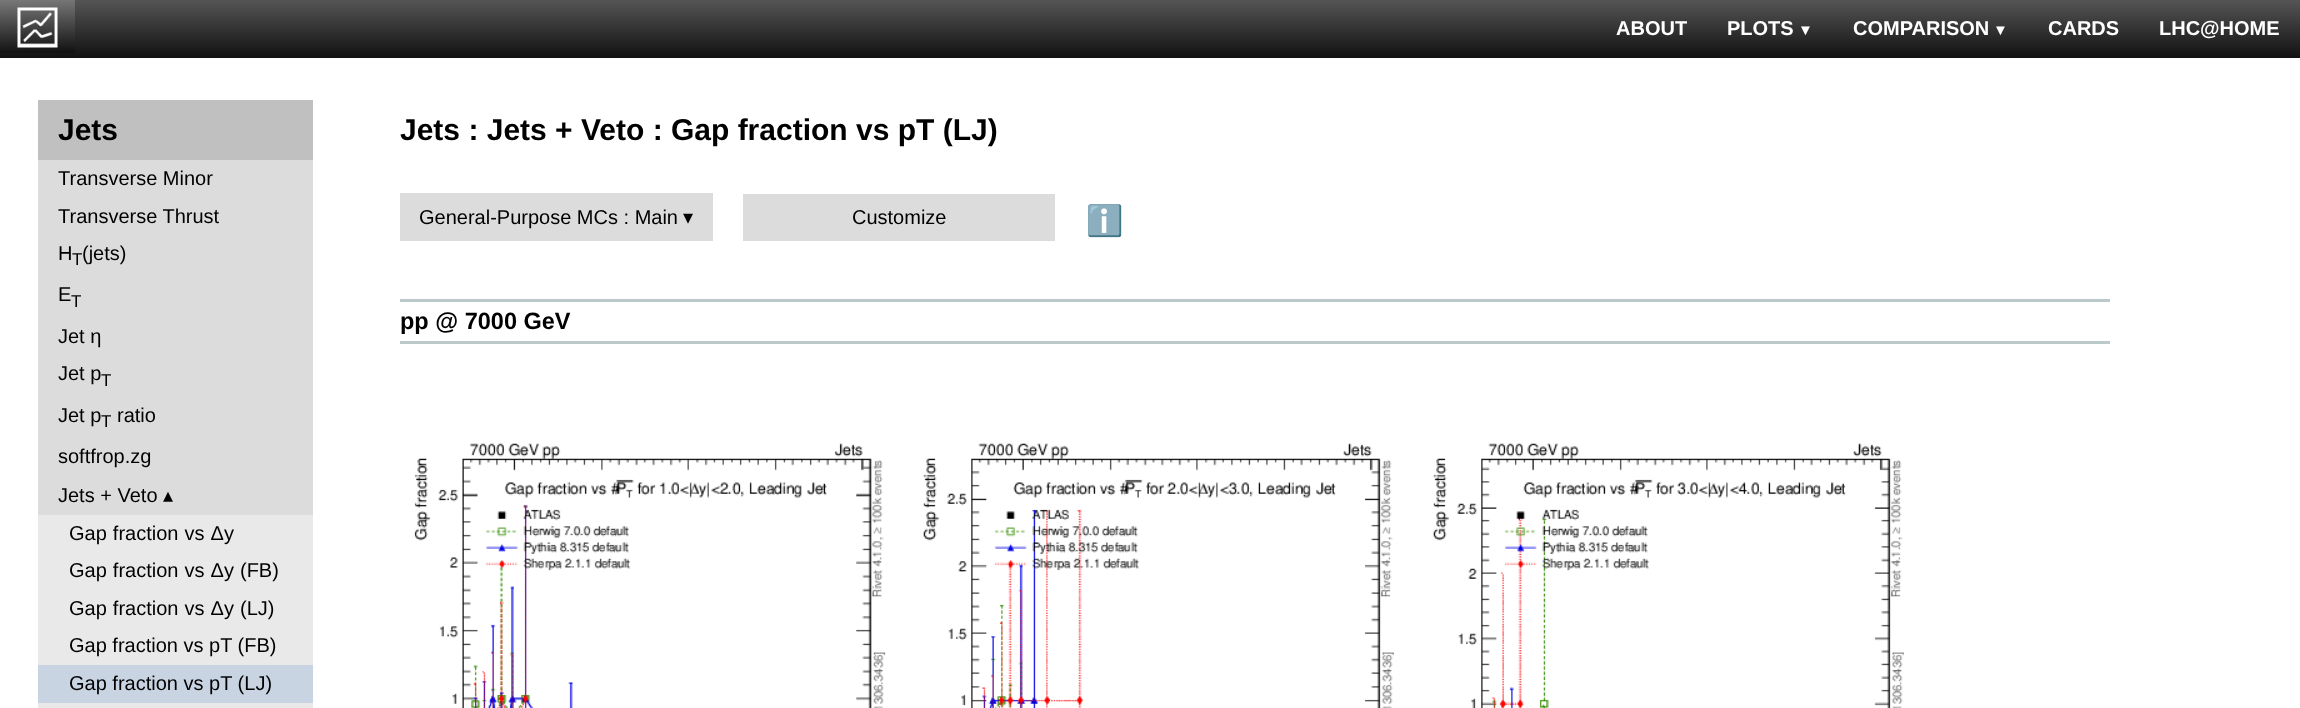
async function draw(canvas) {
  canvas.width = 2300
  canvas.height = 708
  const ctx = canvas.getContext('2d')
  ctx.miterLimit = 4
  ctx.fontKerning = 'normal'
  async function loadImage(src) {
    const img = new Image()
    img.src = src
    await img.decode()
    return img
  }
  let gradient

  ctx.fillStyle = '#fff'
  ctx.fillRect(0, 0, 2300, 708)
  gradient = ctx.createLinearGradient(1150, 0, 1150, 58)
  gradient.addColorStop(0, '#555')
  gradient.addColorStop(1, '#111')
  ctx.fillStyle = gradient
  ctx.fillRect(0, 0, 2300, 58)
  gradient = ctx.createLinearGradient(37, 0, 38, 53)
  gradient.addColorStop(0, '#777')
  gradient.addColorStop(1, '#111')
  ctx.fillStyle = gradient
  ctx.fillRect(0, 0, 75, 53)
  ctx.drawImage(await loadImage('image0.png'), 17, 7, 41, 41)
  ctx.font = 'bold 20px Liberation Sans'
  ctx.fillStyle = '#fff'
  ctx.fillText('ABOUT', 1616, 35)
  ctx.fillText('PLOTS', 1727, 35)
  ctx.font = 'bold 15px Liberation Sans'
  ctx.fillText('▼', 1798, 35)
  ctx.font = 'bold 20px Liberation Sans'
  ctx.fillText('COMPARISON', 1853, 35)
  ctx.font = 'bold 15px Liberation Sans'
  ctx.fillText('▼', 1993, 35)
  ctx.font = 'bold 20px Liberation Sans'
  ctx.fillText('CARDS', 2048, 35)
  ctx.fillText('LHC@HOME', 2159, 35)
  ctx.fillStyle = '#c0c0c0'
  ctx.fillRect(38, 100, 275, 60)
  ctx.font = 'bold 30px Liberation Sans'
  ctx.fillStyle = '#000'
  ctx.fillText('Jets', 58, 140)
  ctx.fillStyle = '#dcdcdc'
  ctx.fillRect(38, 160, 275, 355)
  ctx.font = '20px Liberation Sans'
  ctx.fillStyle = '#000'
  ctx.fillText('Transverse Minor', 58, 185)
  ctx.fillText('Transverse Thrust', 58, 223)
  ctx.fillText('H', 58, 260)
  ctx.font = '17px Liberation Sans'
  ctx.fillText('T', 72, 265)
  ctx.font = '20px Liberation Sans'
  ctx.fillText('(jets)', 82, 260)
  ctx.fillText('E', 58, 301)
  ctx.font = '17px Liberation Sans'
  ctx.fillText('T', 71, 307)
  ctx.font = '20px Liberation Sans'
  ctx.fillText('Jet η', 58, 343)
  ctx.fillText('Jet p', 58, 380)
  ctx.font = '17px Liberation Sans'
  ctx.fillText('T', 101, 386)
  ctx.font = '20px Liberation Sans'
  ctx.fillText('Jet p', 58, 422)
  ctx.font = '17px Liberation Sans'
  ctx.fillText('T', 101, 427)
  ctx.font = '20px Liberation Sans'
  ctx.fillText('ratio', 117, 422)
  ctx.fillText('softfrop.zg', 58, 463)
  ctx.fillText('Jets + Veto', 58, 502)
  ctx.font = '20px DejaVu Sans'
  ctx.fillText('▴', 163, 502)
  ctx.fillStyle = '#e9e9e9'
  ctx.fillRect(38, 515, 275, 150)
  ctx.wordSpacing = '0.5px'
  ctx.font = '20px Liberation Sans'
  ctx.fillStyle = '#000'
  ctx.fillText('Gap fraction vs Δy', 69, 540)
  ctx.fillText('Gap fraction vs Δy (FB)', 69, 577)
  ctx.fillText('Gap fraction vs Δy (LJ)', 69, 615)
  ctx.wordSpacing = '0px'
  ctx.fillText('Gap fraction vs pT (FB)', 69, 652)
  ctx.fillStyle = '#c9d4e3'
  ctx.fillRect(38, 665, 275, 38)
  ctx.fillStyle = '#000'
  ctx.fillText('Gap fraction vs pT (LJ)', 69, 690)
  ctx.fillStyle = '#e9e9e9'
  ctx.fillRect(38, 703, 275, 5)
  ctx.font = 'bold 30px Liberation Sans'
  ctx.fillStyle = '#000'
  ctx.fillText('Jets : Jets + Veto : Gap fraction vs pT (LJ)', 400, 140)
  ctx.fillStyle = '#dcdcdc'
  ctx.fillRect(400, 193, 313, 48)
  ctx.font = '20px Liberation Sans'
  ctx.fillStyle = '#000'
  ctx.fillText('General-Purpose MCs : Main', 419, 224)
  ctx.font = '20px DejaVu Sans'
  ctx.fillText('▾', 683, 224)
  ctx.fillStyle = '#dcdcdc'
  ctx.fillRect(743, 194, 312, 47)
  ctx.font = '20px Liberation Sans'
  ctx.fillStyle = '#000'
  ctx.fillText('Customize', 852, 224)
  ctx.font = '30px Noto Color Emoji'
  ctx.fillText('ℹ️', 1086, 231)
  ctx.fillStyle = '#bbc9c9'
  ctx.fillRect(400, 299, 1710, 3)
  ctx.fillRect(400, 341, 1710, 3)
  ctx.font = 'bold 23.5px Liberation Sans'
  ctx.fillStyle = '#000'
  ctx.fillText('pp @ 7000 GeV', 400, 329)
  ctx.drawImage(await loadImage('image1.png'), 414, 443, 472, 265)
  ctx.drawImage(await loadImage('image2.png'), 923, 443, 471, 265)
  ctx.drawImage(await loadImage('image3.png'), 1433, 443, 471, 265)
}

draw(document.querySelector('canvas'))
